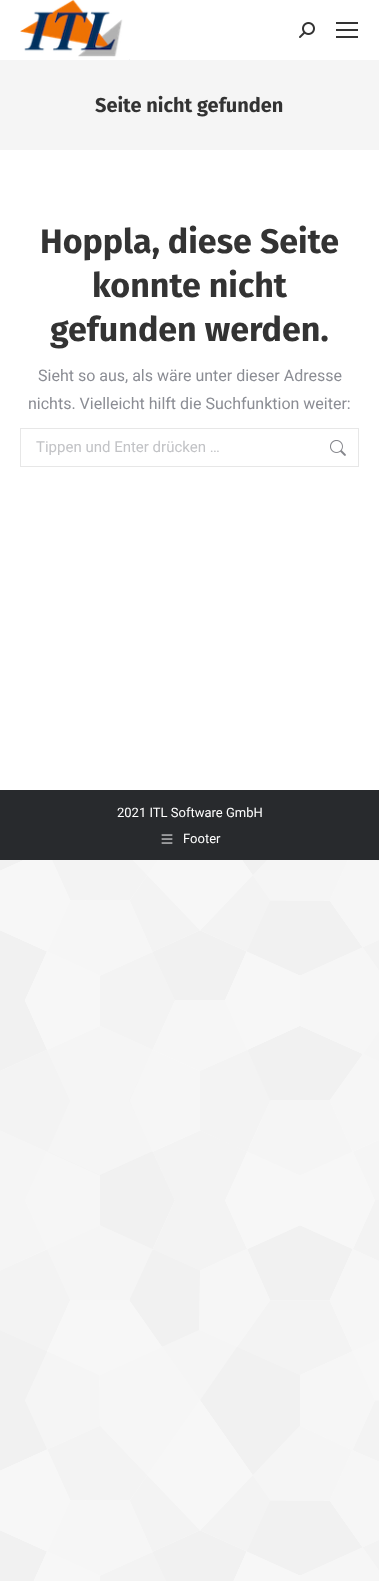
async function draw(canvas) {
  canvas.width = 379
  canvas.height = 1581
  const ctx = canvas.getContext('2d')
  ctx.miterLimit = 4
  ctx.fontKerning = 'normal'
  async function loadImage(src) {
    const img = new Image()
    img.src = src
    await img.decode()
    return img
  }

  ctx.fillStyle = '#fff'
  ctx.fillRect(0, 0, 379, 1581)
  ctx.drawImage(await loadImage('image0.png'), 0, 860, 379, 721)
  ctx.drawImage(await loadImage('image1.png'), 20, 0, 110, 60)
  ctx.drawImage(await loadImage('image2.png'), 299, 22, 16, 16)
  ctx.fillStyle = '#333'
  ctx.fillRect(336, 22, 22, 2)
  ctx.fillRect(336, 29, 22, 2)
  ctx.fillRect(336, 36, 22, 2)
  ctx.fillStyle = '#f5f5f5'
  ctx.fillRect(0, 60, 379, 90)
  ctx.font = 'bold 20px Fira Sans'
  ctx.fillStyle = '#333'
  ctx.fillText('Seite nicht gefunden', 95, 112)
  ctx.font = 'bold 34px Fira Sans'
  ctx.fillText('Hoppla, diese Seite', 40, 253)
  ctx.fillText('konnte nicht', 92, 297)
  ctx.fillText('gefunden werden.', 50, 341)
  ctx.font = '16px Roboto'
  ctx.fillStyle = '#8b8d94'
  ctx.fillText('Sieht so aus, als wäre unter dieser Adresse', 38, 381)
  ctx.fillText('nichts. Vielleicht hilft die Suchfunktion weiter:', 28, 409)
  ctx.strokeStyle = '#e7e7e7'
  ctx.strokeRect(20.5, 428.5, 338, 38)
  ctx.font = '15px Roboto'
  ctx.fillStyle = '#c2c3c6'
  ctx.fillText('Tippen und Enter drücken …', 36, 452)
  ctx.drawImage(await loadImage('image3.png'), 330, 440, 16, 16)
  ctx.fillStyle = '#282a2d'
  ctx.fillRect(0, 790, 379, 70)
  ctx.font = '13px Roboto'
  ctx.fillStyle = '#fff'
  ctx.fillText('2021 ITL Software GmbH', 117, 817)
  ctx.drawImage(await loadImage('image4.png'), 161, 834, 12, 10)
  ctx.fillText('Footer', 183, 843)
}

draw(document.querySelector('canvas'))
